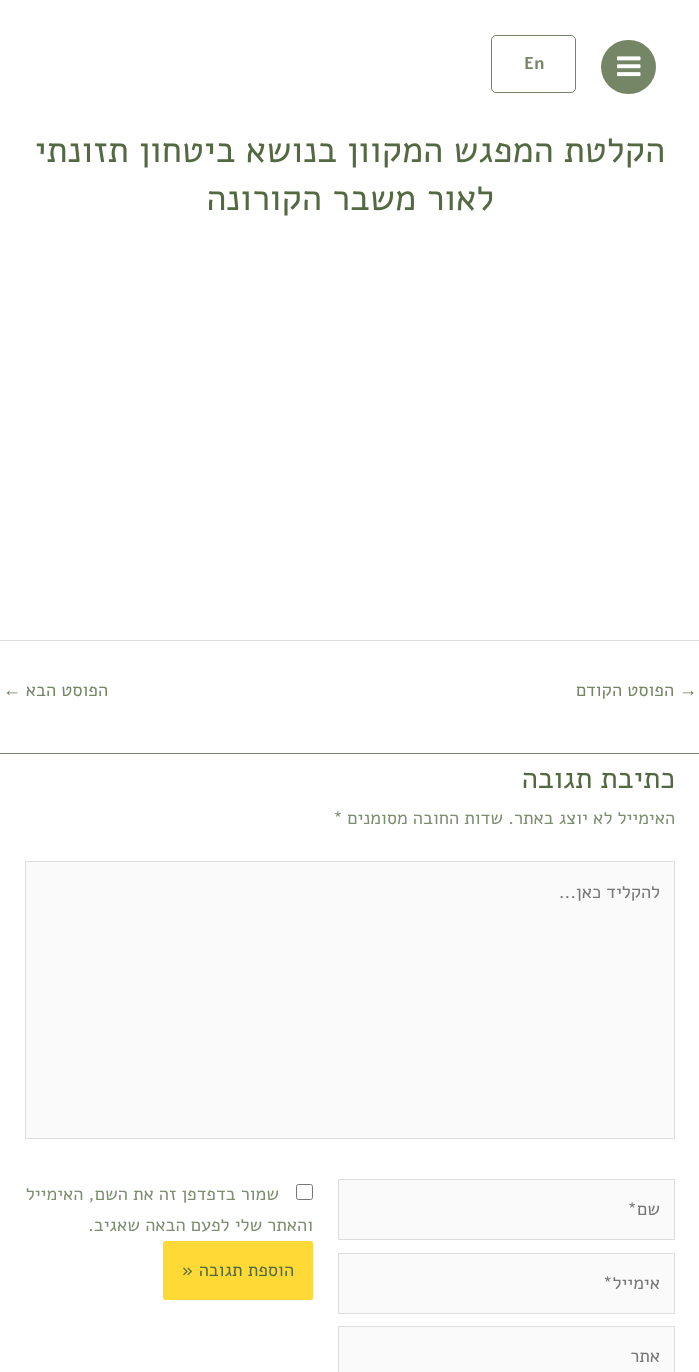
async function draw(canvas) {
  canvas.width = 699
  canvas.height = 1372
  const ctx = canvas.getContext('2d')
  ctx.miterLimit = 4
  ctx.fontKerning = 'normal'
  async function loadImage(src) {
    const img = new Image()
    img.src = src
    await img.decode()
    return img
  }

  ctx.fillStyle = '#fff'
  ctx.fillRect(0, 0, 699, 1372)
  ctx.fillStyle = '#758666'
  ctx.beginPath()
  ctx.roundRect(601, 40, 55, 54, 27)
  ctx.fill()
  ctx.drawImage(await loadImage('image0.png'), 616, 56, 25, 21)
  ctx.beginPath()
  ctx.roundRect(491.5, 35.5, 84, 57, 4.5)
  ctx.strokeStyle = '#758666'
  ctx.stroke()
  ctx.font = 'bold 17px Alef'
  ctx.fillText('En', 524, 69)
  ctx.direction = 'rtl'
  ctx.font = '36.25px Alef'
  ctx.fillStyle = '#536942'
  ctx.fillText('הקלטת המפגש המקוון בנושא ביטחון תזונתי', 665, 162)
  ctx.fillText('לאור משבר הקורונה', 494, 210)
  ctx.fillStyle = '#ddd'
  ctx.fillRect(0, 640, 699, 1)
  ctx.direction = 'ltr'
  ctx.font = '18.25px Liberation Sans'
  ctx.fillStyle = '#758666'
  ctx.fillText('→', 679, 696)
  ctx.direction = 'rtl'
  ctx.font = '18.25px Alef'
  ctx.fillText('הפוסט הקודם', 674, 696)
  ctx.fillText('הפוסט הבא', 108, 696)
  ctx.direction = 'ltr'
  ctx.font = '18.25px Liberation Sans'
  ctx.fillText('←', 3, 696)
  ctx.fillRect(0, 753, 699, 1)
  ctx.direction = 'rtl'
  ctx.font = '29.5px Alef'
  ctx.fillStyle = '#536942'
  ctx.fillText('כתיבת תגובה', 675, 788)
  ctx.font = '18.25px Alef'
  ctx.fillStyle = '#7d8e70'
  ctx.fillText('האימייל לא יוצג באתר.', 675, 824)
  ctx.fillText('שדות החובה מסומנים', 503, 824)
  ctx.direction = 'ltr'
  ctx.fillText('*', 333, 824)
  ctx.fillStyle = '#fafafa'
  ctx.beginPath()
  ctx.rect(25.5, 861.5, 649, 277)
  ctx.fill()
  ctx.strokeStyle = '#ddd'
  ctx.stroke()
  ctx.direction = 'rtl'
  ctx.fillStyle = '#757575'
  ctx.fillText('להקליד כאן...', 660, 898)
  ctx.fillStyle = '#fafafa'
  ctx.beginPath()
  ctx.rect(338.5, 1179.5, 336, 60)
  ctx.fill()
  ctx.stroke()
  ctx.fillStyle = '#757575'
  ctx.fillText('שם*', 660, 1215)
  ctx.fillStyle = '#fafafa'
  ctx.beginPath()
  ctx.rect(338.5, 1253.5, 336, 60)
  ctx.fill()
  ctx.stroke()
  ctx.fillStyle = '#757575'
  ctx.fillText('אימייל*', 660, 1289)
  ctx.fillStyle = '#fafafa'
  ctx.beginPath()
  ctx.rect(338.5, 1326.5, 336, 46)
  ctx.fill()
  ctx.stroke()
  ctx.fillStyle = '#757575'
  ctx.fillText('אתר', 660, 1362)
  ctx.beginPath()
  ctx.roundRect(296.5, 1184.5, 16, 15, 2)
  ctx.strokeStyle = '#767676'
  ctx.stroke()
  ctx.fillStyle = '#7d8e70'
  ctx.fillText('שמור בדפדפן זה את השם, האימייל', 279, 1200)
  ctx.fillText('והאתר שלי לפעם הבאה שאגיב.', 313, 1231)
  ctx.fillStyle = '#ffd936'
  ctx.beginPath()
  ctx.roundRect(163, 1241, 150, 59, 2.5)
  ctx.fill()
  ctx.fillStyle = '#536942'
  ctx.fillText('הוספת תגובה «', 294, 1276)
}

draw(document.querySelector('canvas'))
